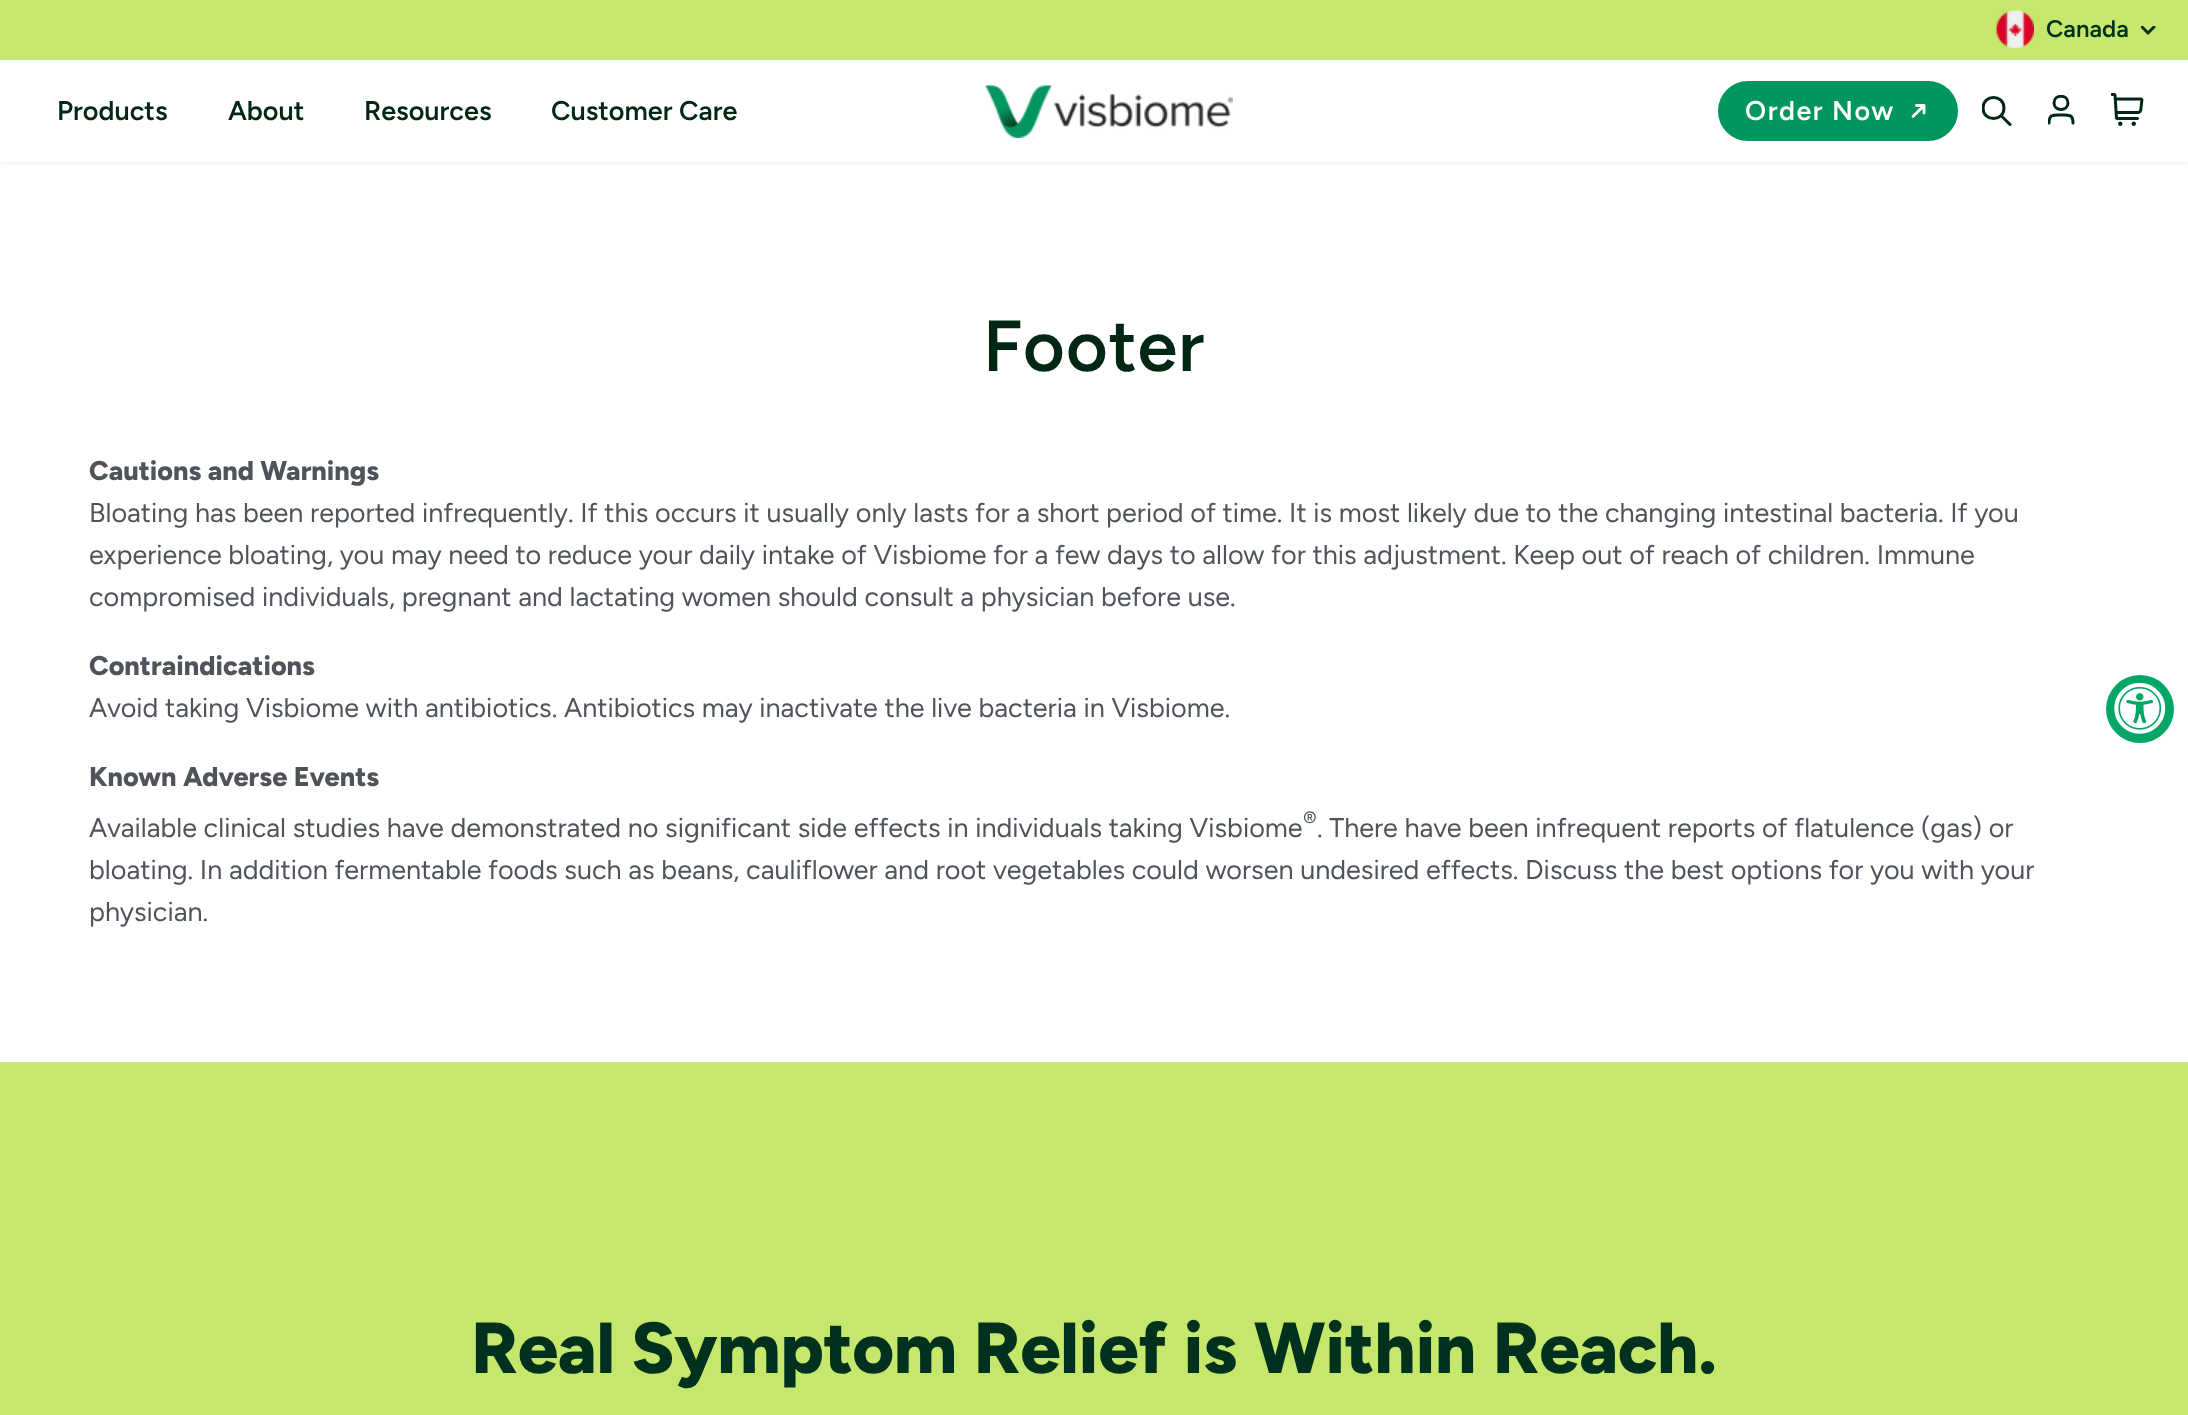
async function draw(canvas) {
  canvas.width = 2188
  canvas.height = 1415
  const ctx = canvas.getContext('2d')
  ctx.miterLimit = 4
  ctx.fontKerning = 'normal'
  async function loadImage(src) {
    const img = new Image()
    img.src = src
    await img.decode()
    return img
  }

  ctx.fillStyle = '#fff'
  ctx.fillRect(0, 0, 2188, 1415)
  ctx.fillStyle = '#c5e86c'
  ctx.fillRect(0, 0, 2188, 60)
  ctx.drawImage(await loadImage('image0.png'), 1996, 10, 38, 39)
  ctx.font = '600 24px Figtree'
  ctx.fillStyle = '#00301e'
  ctx.fillText('Canada', 2046, 37)
  ctx.save()
  ctx.beginPath()
  ctx.rect(2141, 26, 15, 9)
  ctx.clip()
  ctx.beginPath()
  ctx.moveTo(2142, 27)
  ctx.lineTo(2148, 33)
  ctx.lineTo(2154, 27)
  ctx.strokeStyle = '#00301e'
  ctx.lineWidth = 3
  ctx.lineCap = 'round'
  ctx.lineJoin = 'round'
  ctx.stroke()
  ctx.restore()
  ctx.fillStyle = '#1018280d'
  ctx.filter = 'blur(1.5px)'
  ctx.beginPath()
  ctx.rect(0, 62, 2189, 102)
  ctx.fill()
  ctx.filter = 'none'
  ctx.fillStyle = '#fff'
  ctx.fillRect(0, 61, 2188, 101)
  ctx.font = '600 27px Figtree'
  ctx.fillStyle = '#002714'
  ctx.fillText('Products', 57, 120)
  ctx.fillText('About', 228, 120)
  ctx.fillText('Resources', 364, 120)
  ctx.fillText('Customer Care', 551, 120)
  ctx.drawImage(await loadImage('image1.png'), 985, 85, 248, 53)
  ctx.fillStyle = '#00965e'
  ctx.beginPath()
  ctx.roundRect(1719, 82, 238, 58, 29)
  ctx.fill()
  ctx.strokeStyle = '#00965e'
  ctx.lineWidth = 2
  ctx.stroke()
  ctx.letterSpacing = '1.5px'
  ctx.fillStyle = '#fff'
  ctx.fillText('Order Now', 1745, 120)
  ctx.beginPath()
  ctx.moveTo(1913, 116.5)
  ctx.lineTo(1924, 105.5)
  ctx.moveTo(1924, 105.5)
  ctx.lineTo(1916.5, 105.5)
  ctx.moveTo(1924, 105.5)
  ctx.lineTo(1924, 113)
  ctx.strokeStyle = '#fff'
  ctx.lineWidth = 2.8
  ctx.lineCap = 'round'
  ctx.lineJoin = 'round'
  ctx.stroke()
  ctx.save()
  ctx.beginPath()
  ctx.rect(1982, 96, 30, 30)
  ctx.clip()
  ctx.beginPath()
  ctx.moveTo(2010, 124.5)
  ctx.lineTo(2001, 115.5)
  ctx.moveTo(2004, 108)
  ctx.bezierCurveTo(2004, 122, 1983, 122, 1983, 108)
  ctx.bezierCurveTo(1983, 94, 2004, 94, 2004, 108)
  ctx.closePath()
  ctx.strokeStyle = '#002714'
  ctx.lineWidth = 3
  ctx.stroke()
  ctx.restore()
  ctx.save()
  ctx.beginPath()
  ctx.rect(2048, 95, 27, 30)
  ctx.clip()
  ctx.beginPath()
  ctx.moveTo(2073, 123)
  ctx.bezierCurveTo(2073, 114, 2068.5, 115, 2061, 115)
  ctx.bezierCurveTo(2053.5, 115, 2049, 114, 2049, 123)
  ctx.moveTo(2068, 103)
  ctx.bezierCurveTo(2068, 111.5, 2054, 111.5, 2054, 103)
  ctx.bezierCurveTo(2054, 94, 2068, 94, 2068, 103)
  ctx.closePath()
  ctx.strokeStyle = '#002714'
  ctx.lineWidth = 3
  ctx.stroke()
  ctx.restore()
  ctx.drawImage(await loadImage('image2.png'), 2111, 93, 33, 33)
  ctx.letterSpacing = '1px'
  ctx.font = '600 72px Figtree'
  ctx.fillStyle = '#002714'
  ctx.fillText('Footer', 983, 371)
  ctx.letterSpacing = '0px'
  ctx.font = '800 27px Figtree'
  ctx.fillStyle = '#4f535a'
  ctx.fillText('Cautions and Warnings', 89, 480)
  ctx.font = '27px Figtree'
  ctx.fillText('Bloating has been reported infrequently. If this occurs it usually only lasts for a short period of time. It is most likely due to the changing intestinal bacteria. If you', 89, 522)
  ctx.fillText('experience bloating, you may need to reduce your daily intake of Visbiome for a few days to allow for this adjustment. Keep out of reach of children. Immune', 89, 564)
  ctx.fillText('compromised individuals, pregnant and lactating women should consult a physician before use.', 89, 606)
  ctx.font = '800 27px Figtree'
  ctx.fillText('Contraindications', 89, 675)
  ctx.font = '27px Figtree'
  ctx.fillText('Avoid taking Visbiome with antibiotics. Antibiotics may inactivate the live bacteria in Visbiome.', 89, 717)
  ctx.font = '800 27px Figtree'
  ctx.fillText('Known Adverse Events', 89, 786)
  ctx.font = '27px Figtree'
  ctx.fillText('Available clinical studies have demonstrated no significant side effects in individuals taking Visbiome', 89, 837)
  ctx.font = '22px Figtree'
  ctx.fillText('®', 1303, 827)
  ctx.font = '27px Figtree'
  ctx.fillText('. There have been infrequent reports of flatulence (gas) or', 1317, 837)
  ctx.fillText('bloating. In addition fermentable foods such as beans, cauliflower and root vegetables could worsen undesired effects. Discuss the best options for you with your', 89, 879)
  ctx.fillText('physician.', 89, 921)
  ctx.fillStyle = '#c5e86c'
  ctx.fillRect(0, 1062, 2188, 353)
  ctx.letterSpacing = '-0.3px'
  ctx.font = '800 72px Figtree'
  ctx.fillStyle = '#00301e'
  ctx.fillText('Real Symptom Relief is Within Reach.', 471, 1373)
  ctx.fillStyle = '#00a766'
  ctx.beginPath()
  ctx.arc(2140, 709, 34, 0, 2 * Math.PI)
  ctx.fill()
  ctx.drawImage(await loadImage('image3.png'), 2114, 682, 52, 52)
}

draw(document.querySelector('canvas'))
